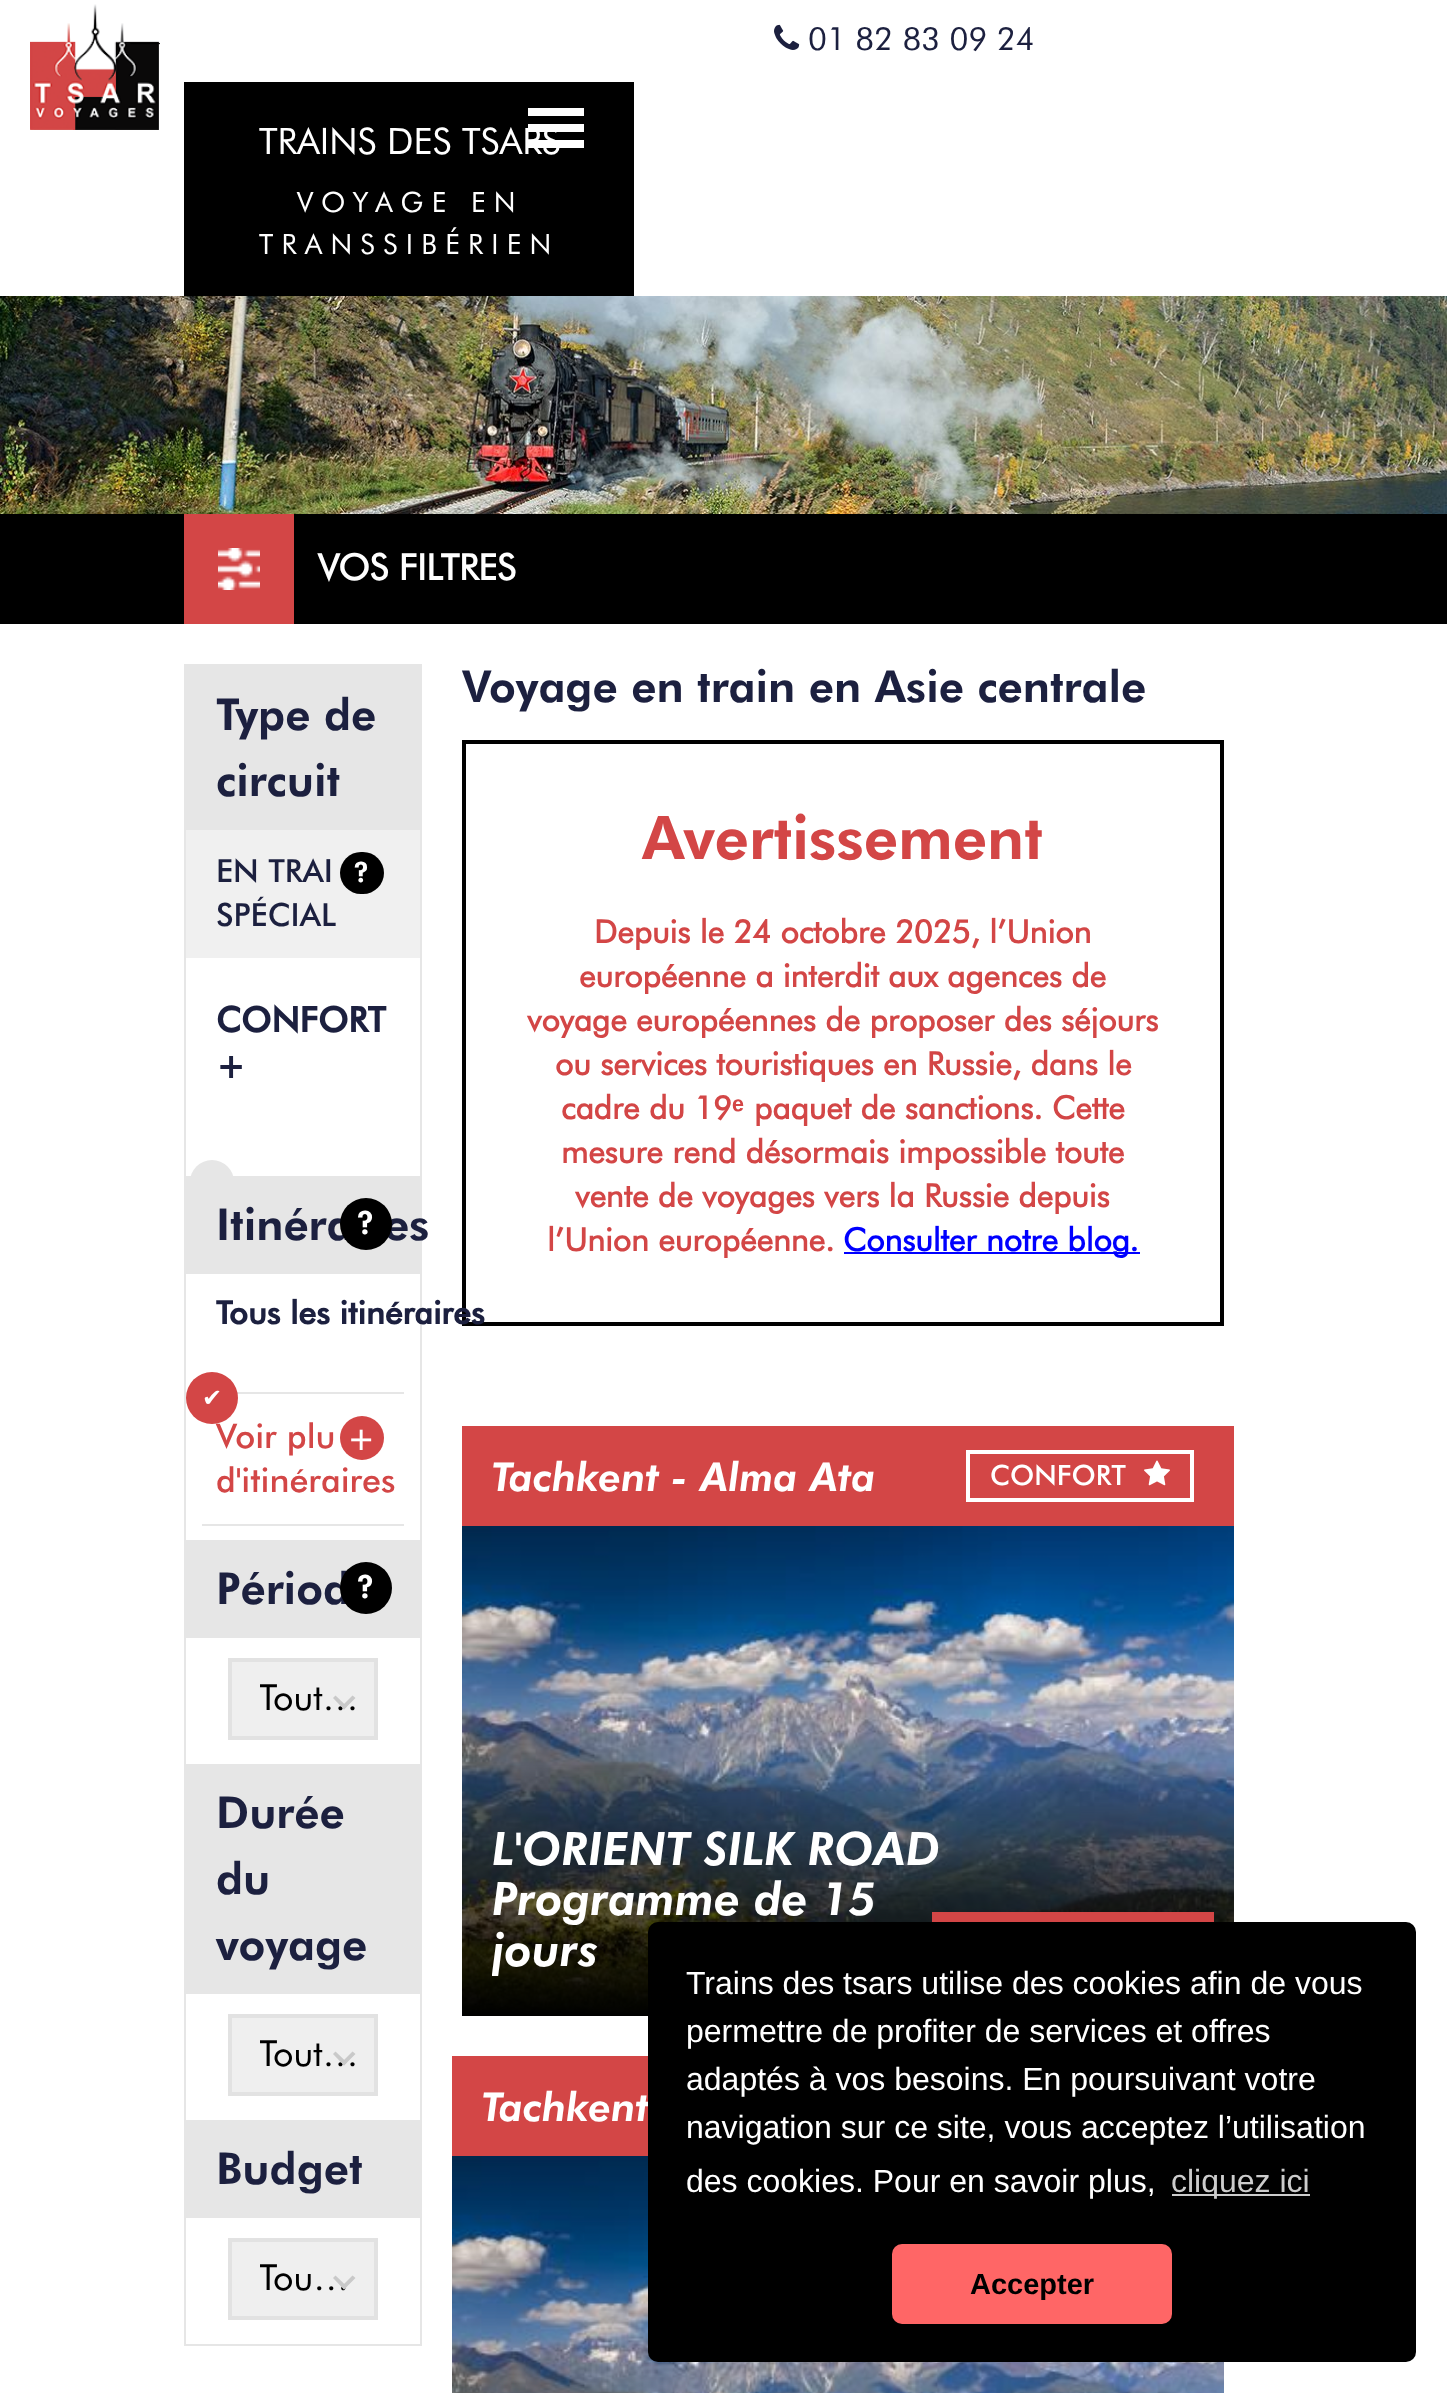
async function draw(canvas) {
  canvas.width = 1447
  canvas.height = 2393
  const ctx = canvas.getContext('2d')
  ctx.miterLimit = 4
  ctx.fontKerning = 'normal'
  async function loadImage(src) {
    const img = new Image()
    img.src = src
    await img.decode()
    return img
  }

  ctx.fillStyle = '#fff'
  ctx.fillRect(0, 0, 1447, 2393)
  ctx.drawImage(await loadImage('image0.png'), 30, 4, 130, 126)
  ctx.drawImage(await loadImage('image1.png'), 774, 24, 26, 26)
  ctx.font = '32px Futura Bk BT'
  ctx.fillStyle = '#1c203f'
  ctx.fillText('01 82 83 09 24', 808, 50)
  ctx.fillStyle = '#000'
  ctx.fillRect(184, 82, 450, 214)
  ctx.fillStyle = '#fff'
  ctx.fillRect(528, 108, 56, 8)
  ctx.fillRect(528, 124, 56, 8)
  ctx.fillRect(528, 140, 56, 8)
  ctx.font = '36.5px Futura Bk BT'
  ctx.fillText('TRAINS DES TSARS', 259, 154)
  ctx.letterSpacing = '8.25px'
  ctx.font = '28px Futura Bk BT'
  ctx.fillText('VOYAGE EN', 297, 212)
  ctx.fillText('TRANSSIBÉRIEN', 259, 254)
  ctx.drawImage(await loadImage('image2.png'), 0, 296, 1447, 218)
  ctx.fillStyle = '#000'
  ctx.fillRect(0, 514, 1447, 110)
  ctx.fillStyle = '#d34646'
  ctx.fillRect(184, 514, 110, 110)
  ctx.drawImage(await loadImage('image3.png'), 218, 548, 42, 42)
  ctx.letterSpacing = '0px'
  ctx.font = 'bold 36px Futura Bk BT'
  ctx.fillStyle = '#fff'
  ctx.fillText('VOS FILTRES', 318, 580)
  ctx.strokeStyle = '#e6e6e6'
  ctx.lineWidth = 2
  ctx.strokeRect(185, 665, 236, 1680)
  ctx.fillStyle = '#e6e6e6'
  ctx.fillRect(186, 666, 234, 164)
  ctx.font = '900 44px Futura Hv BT'
  ctx.fillStyle = '#1c203f'
  ctx.fillText('Type de', 216, 730)
  ctx.fillText('circuit', 216, 796)
  ctx.fillStyle = '#f0f0f0'
  ctx.fillRect(186, 830, 234, 128)
  ctx.font = '500 32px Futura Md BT'
  ctx.fillStyle = '#1c203f'
  ctx.fillText('EN TRAI', 216, 882)
  ctx.fillText('SPÉCIAL', 216, 926)
  ctx.fillStyle = '#000'
  ctx.beginPath()
  ctx.roundRect(340, 852, 44, 42, 21)
  ctx.fill()
  ctx.font = '900 28px Futura Hv BT'
  ctx.fillStyle = '#fff'
  ctx.fillText('?', 353, 882)
  ctx.font = 'bold 35px Futura Md BT'
  ctx.fillStyle = '#1c203f'
  ctx.fillText('CONFORT', 216, 1032)
  ctx.fillText('+', 216, 1078)
  ctx.fillStyle = '#e6e6e6'
  ctx.beginPath()
  ctx.arc(212, 1182, 22, 0, 2 * Math.PI)
  ctx.fill()
  ctx.fillRect(186, 1176, 234, 98)
  ctx.font = '900 44px Futura Hv BT'
  ctx.fillStyle = '#1c203f'
  ctx.fillText('Itinéra', 216, 1240)
  ctx.fillText('es', 384, 1240)
  ctx.fillStyle = '#000'
  ctx.beginPath()
  ctx.arc(366, 1224, 26, 0, 2 * Math.PI)
  ctx.fill()
  ctx.font = '900 32px Futura Hv BT'
  ctx.fillStyle = '#fff'
  ctx.fillText('?', 356, 1234)
  ctx.strokeStyle = '#000'
  ctx.lineWidth = 4
  ctx.strokeRect(464, 742, 758, 582)
  ctx.font = 'bold 32px Futura Md BT'
  ctx.fillStyle = '#1c203f'
  ctx.fillText('Tous les itinéraires', 216, 1324)
  ctx.fillStyle = '#e6e6e6'
  ctx.fillRect(237, 1392, 167, 2)
  ctx.fillStyle = '#d34646'
  ctx.beginPath()
  ctx.arc(212, 1398, 26, 0, 2 * Math.PI)
  ctx.fill()
  ctx.font = '24px DejaVu Sans'
  ctx.fillStyle = '#fff'
  ctx.fillText('✔', 202, 1406)
  ctx.font = '500 34px Futura Md BT'
  ctx.fillStyle = '#d34646'
  ctx.fillText('Voir plu', 216, 1448)
  ctx.beginPath()
  ctx.arc(362, 1438, 22, 0, 2 * Math.PI)
  ctx.fill()
  ctx.fillStyle = '#fff'
  ctx.fillText('+', 347, 1450)
  ctx.fillStyle = '#d34646'
  ctx.fillText('d\'itinéraires', 216, 1492)
  ctx.fillStyle = '#e6e6e6'
  ctx.fillRect(202, 1524, 202, 2)
  ctx.fillRect(186, 1540, 234, 98)
  ctx.font = '900 44px Futura Hv BT'
  ctx.fillStyle = '#1c203f'
  ctx.fillText('Périod', 216, 1604)
  ctx.fillStyle = '#000'
  ctx.beginPath()
  ctx.arc(366, 1588, 26, 0, 2 * Math.PI)
  ctx.fill()
  ctx.font = '900 32px Futura Hv BT'
  ctx.fillStyle = '#fff'
  ctx.fillText('?', 356, 1598)
  ctx.strokeStyle = '#e2e2e2'
  ctx.strokeRect(230, 1660, 146, 78)
  ctx.fillStyle = '#efefef'
  ctx.fillRect(232, 1662, 142, 74)
  ctx.save()
  ctx.beginPath()
  ctx.rect(260, 1672, 100, 54)
  ctx.clip()
  ctx.font = '36px Futura Bk BT'
  ctx.fillStyle = '#000'
  ctx.fillText('Tout…', 259, 1710)
  ctx.restore()
  ctx.fillStyle = '#c9c9c9'
  ctx.beginPath()
  ctx.moveTo(352.5, 1695.5)
  ctx.lineTo(355.5, 1698)
  ctx.lineTo(344, 1709.5)
  ctx.lineTo(341.5, 1706.5)
  ctx.closePath()
  ctx.fill()
  ctx.beginPath()
  ctx.moveTo(335.5, 1695.5)
  ctx.lineTo(347, 1706.5)
  ctx.lineTo(344, 1709.5)
  ctx.lineTo(333, 1698)
  ctx.closePath()
  ctx.fill()
  ctx.fillStyle = '#e6e6e6'
  ctx.fillRect(186, 1764, 234, 230)
  ctx.font = '900 44px Futura Hv BT'
  ctx.fillStyle = '#1c203f'
  ctx.fillText('Durée', 216, 1828)
  ctx.fillText('du', 216, 1894)
  ctx.fillText('voyage', 216, 1960)
  ctx.strokeRect(230, 2016, 146, 78)
  ctx.fillStyle = '#efefef'
  ctx.fillRect(232, 2018, 142, 74)
  ctx.save()
  ctx.beginPath()
  ctx.rect(260, 2028, 100, 54)
  ctx.clip()
  ctx.font = '36px Futura Bk BT'
  ctx.fillStyle = '#000'
  ctx.fillText('Tout…', 259, 2066)
  ctx.restore()
  ctx.fillStyle = '#c9c9c9'
  ctx.beginPath()
  ctx.moveTo(352.5, 2051.5)
  ctx.lineTo(355.5, 2054)
  ctx.lineTo(344, 2065.5)
  ctx.lineTo(341.5, 2062.5)
  ctx.closePath()
  ctx.fill()
  ctx.beginPath()
  ctx.moveTo(335.5, 2051.5)
  ctx.lineTo(347, 2062.5)
  ctx.lineTo(344, 2065.5)
  ctx.lineTo(333, 2054)
  ctx.closePath()
  ctx.fill()
  ctx.fillStyle = '#e6e6e6'
  ctx.fillRect(186, 2120, 234, 98)
  ctx.fillStyle = '#1c203f'
  ctx.fillText('Budget', 216, 2184)
  ctx.strokeRect(230, 2240, 146, 78)
  ctx.fillStyle = '#efefef'
  ctx.fillRect(232, 2242, 142, 74)
  ctx.save()
  ctx.beginPath()
  ctx.rect(260, 2252, 100, 54)
  ctx.clip()
  ctx.font = '36px Futura Bk BT'
  ctx.fillStyle = '#000'
  ctx.fillText('Tou…', 259, 2290)
  ctx.restore()
  ctx.fillStyle = '#c9c9c9'
  ctx.beginPath()
  ctx.moveTo(352.5, 2275.5)
  ctx.lineTo(355.5, 2278)
  ctx.lineTo(344, 2289.5)
  ctx.lineTo(341.5, 2286.5)
  ctx.closePath()
  ctx.fill()
  ctx.beginPath()
  ctx.moveTo(335.5, 2275.5)
  ctx.lineTo(347, 2286.5)
  ctx.lineTo(344, 2289.5)
  ctx.lineTo(333, 2278)
  ctx.closePath()
  ctx.fill()
  ctx.fillStyle = '#1c203f'
  ctx.fillText('Voyage en train en Asie centrale', 462, 702)
  ctx.font = '900 60px Futura Hv BT'
  ctx.fillStyle = '#d34646'
  ctx.fillText('Avertissement', 642, 859)
  ctx.font = 'bold 32px Futura'
  ctx.fillText('Depuis le 24 octobre 2025, l’Union', 594, 943)
  ctx.fillText('européenne a interdit aux agences de', 579, 987)
  ctx.fillText('voyage européennes de proposer des séjours', 527, 1031)
  ctx.fillText('ou services touristiques en Russie, dans le', 555, 1075)
  ctx.fillText('cadre du 19', 561, 1119)
  ctx.font = 'bold 32px Liberation Sans'
  ctx.fillText('ᵉ', 732, 1119)
  ctx.font = 'bold 32px Futura'
  ctx.fillText('paquet de sanctions. Cette', 754, 1119)
  ctx.fillText('mesure rend désormais impossible toute', 561, 1163)
  ctx.fillText('vente de voyages vers la Russie depuis', 575, 1207)
  ctx.fillText('l’Union européenne.', 547, 1251)
  ctx.fillStyle = '#00f'
  ctx.fillRect(844, 1252, 296, 2)
  ctx.fillText('Consulter notre blog.', 843, 1251)
  ctx.fillStyle = '#d34646'
  ctx.fillRect(462, 1426, 772, 100)
  ctx.font = 'italic 900 40px Futura Hv BT'
  ctx.fillStyle = '#fff'
  ctx.fillText('Tachkent - Alma Ata', 492, 1491)
  ctx.strokeStyle = '#fff'
  ctx.strokeRect(968, 1452, 224, 48)
  ctx.font = '500 28px Futura Md BT'
  ctx.fillText('CONFORT', 990, 1485)
  ctx.drawImage(await loadImage('image4.png'), 1144, 1460, 26, 26)
  ctx.drawImage(await loadImage('image5.png'), 462, 1526, 772, 490)
  ctx.font = 'italic 900 46px Futura Hv BT'
  ctx.fillText('L\'ORIENT SILK ROAD', 492, 1865)
  ctx.fillText('Programme de 15', 492, 1915)
  ctx.save()
  ctx.beginPath()
  ctx.rect(492, 1876, 464, 100)
  ctx.clip()
  ctx.fillText('jours', 492, 1966)
  ctx.restore()
  ctx.fillStyle = '#d34646'
  ctx.fillRect(932, 1912, 282, 10)
  ctx.fillRect(452, 2056, 196, 100)
  ctx.font = 'italic 900 40px Futura Hv BT'
  ctx.fillStyle = '#fff'
  ctx.fillText('Tachkent', 482, 2121)
  ctx.drawImage(await loadImage('image6.png'), 452, 2156, 772, 237)
  ctx.fillStyle = '#000'
  ctx.beginPath()
  ctx.roundRect(648, 1922, 768, 440, 10)
  ctx.fill()
  ctx.font = '32px Liberation Sans'
  ctx.fillStyle = '#fff'
  ctx.fillText('Trains des tsars utilise des cookies afin de vous', 686, 1994)
  ctx.fillText('permettre de profiter de services et offres', 686, 2042)
  ctx.fillText('adaptés à vos besoins. En poursuivant votre', 686, 2090)
  ctx.fillText('navigation sur ce site, vous acceptez l’utilisation', 686, 2138)
  ctx.fillText('des cookies. Pour en savoir plus,', 686, 2192)
  ctx.fillStyle = '#ccc'
  ctx.fillRect(1172, 2194, 138, 2)
  ctx.fillText('cliquez ici', 1171, 2192)
  ctx.fillStyle = '#f66'
  ctx.beginPath()
  ctx.roundRect(892, 2244, 280, 80, 10)
  ctx.fill()
  ctx.font = 'bold 29px Liberation Sans'
  ctx.fillStyle = '#000'
  ctx.fillText('Accepter', 970, 2294)
}

draw(document.querySelector('canvas'))
